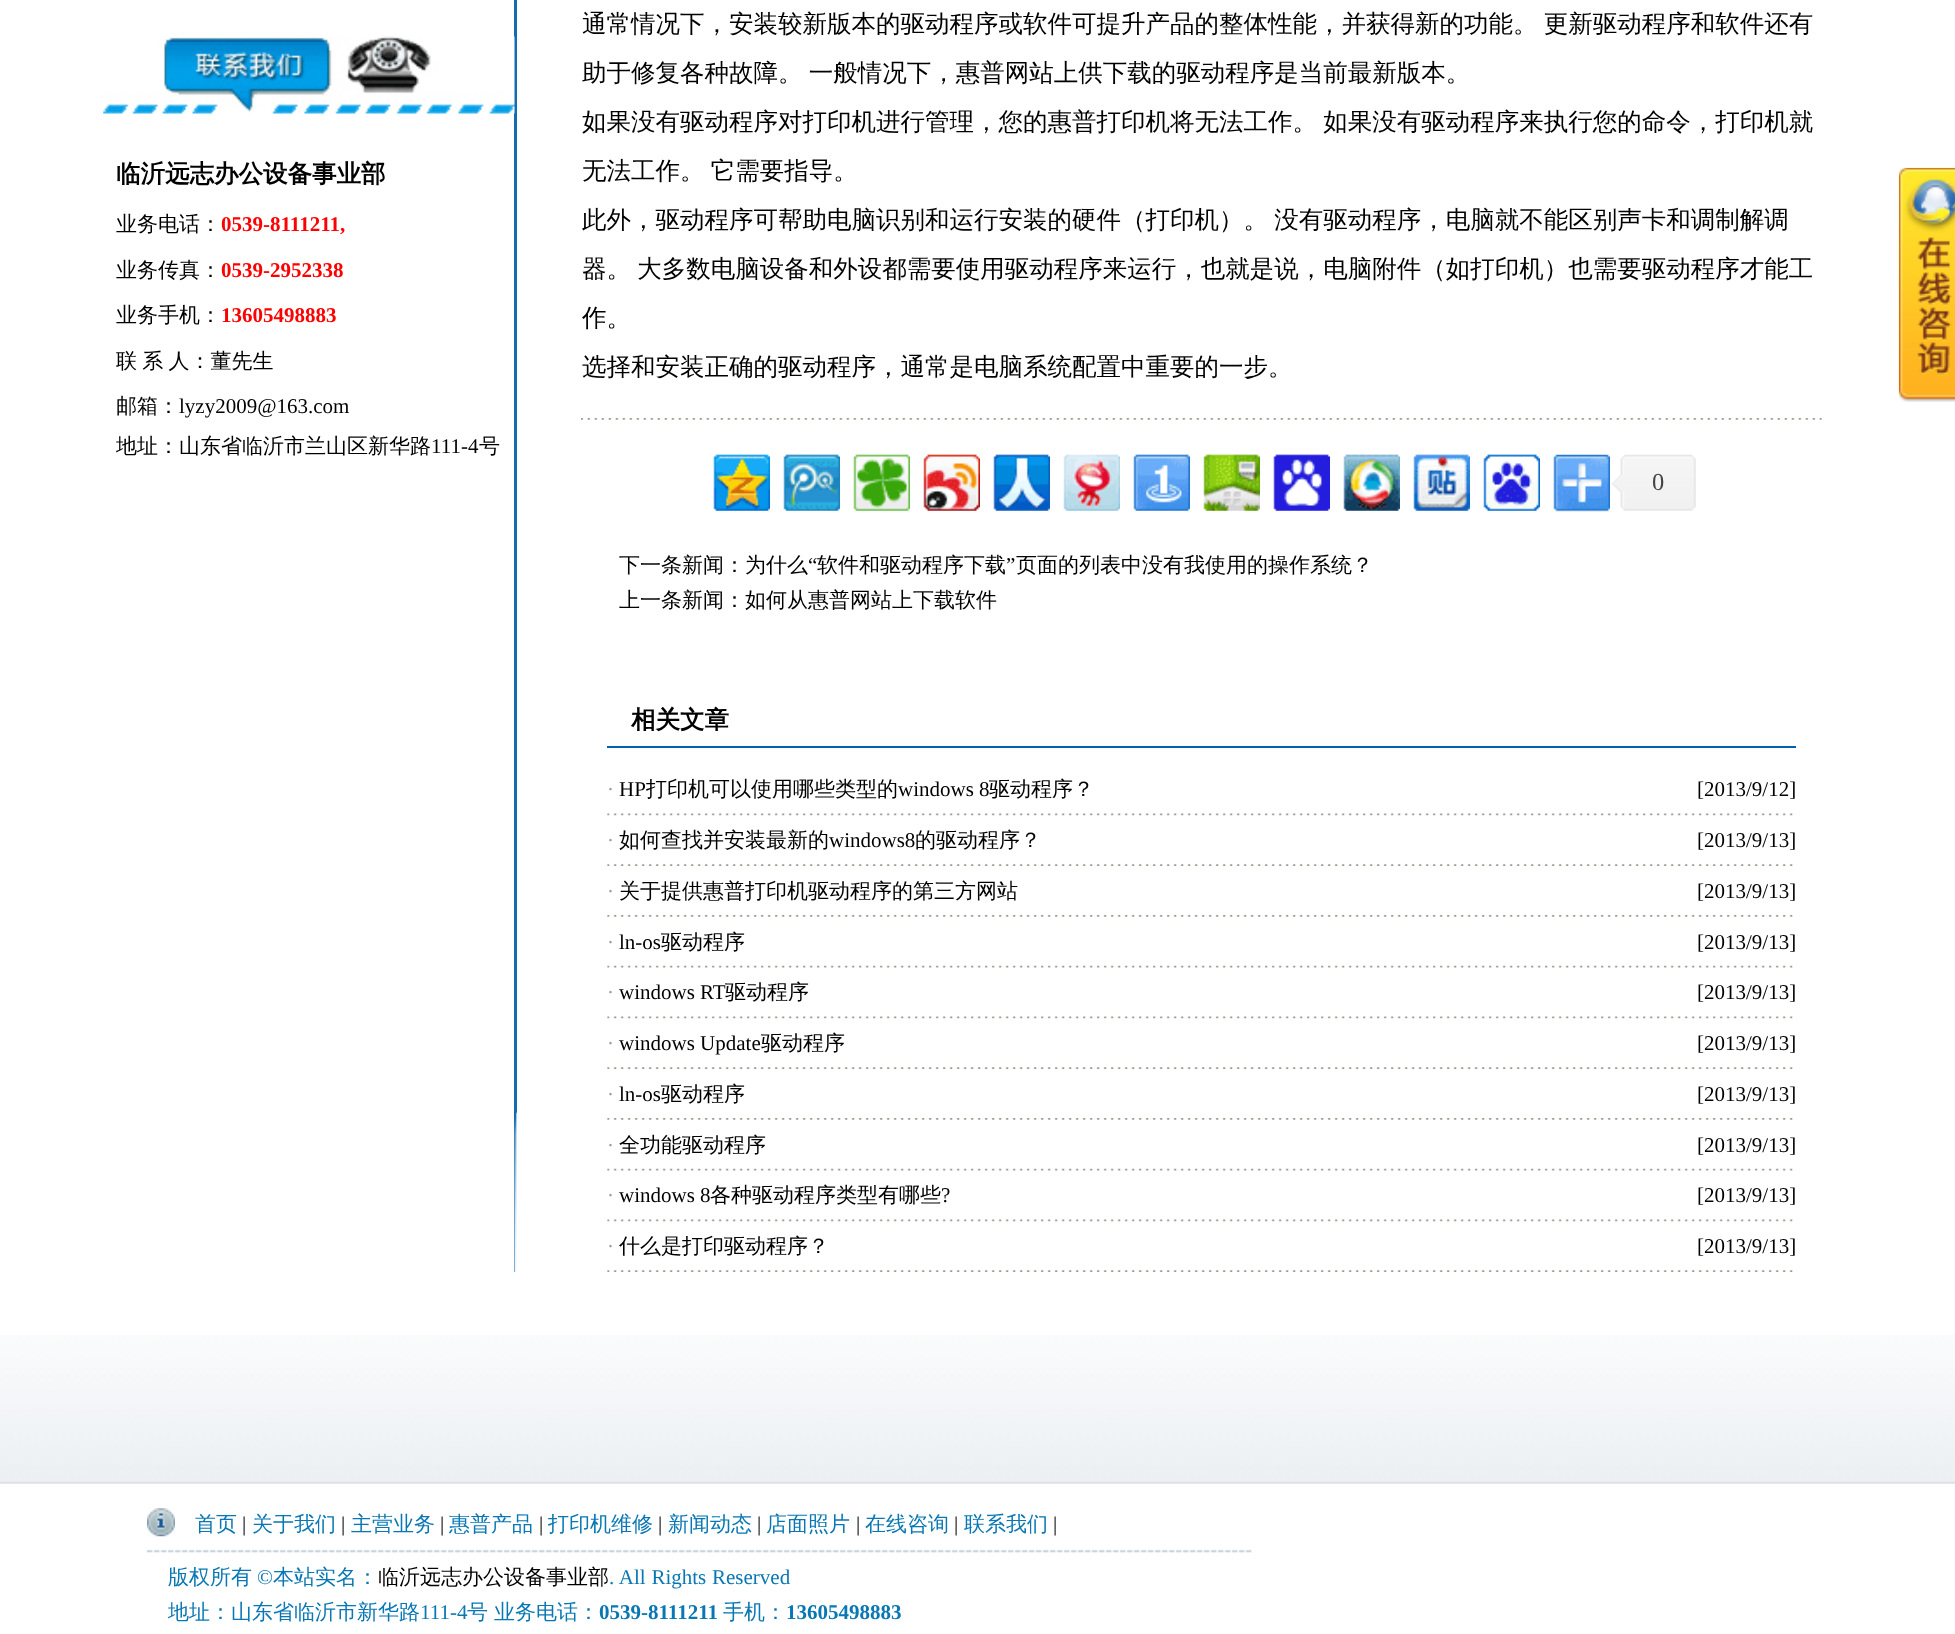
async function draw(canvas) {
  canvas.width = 1955
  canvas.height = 1634
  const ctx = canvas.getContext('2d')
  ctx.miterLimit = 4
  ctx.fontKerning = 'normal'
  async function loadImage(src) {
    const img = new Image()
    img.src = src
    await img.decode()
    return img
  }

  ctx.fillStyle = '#fff'
  ctx.fillRect(0, 0, 1955, 1634)
  ctx.fillStyle = '#136cb3'
  ctx.fillRect(514, 0, 3, 1272)
  ctx.drawImage(await loadImage('image0.png'), 103, 36, 412, 78)
  ctx.font = 'bold 24.5px WenQuanYi Zen Hei'
  ctx.fillStyle = '#000'
  ctx.fillText('临沂远志办公设备事业部', 116, 182)
  ctx.font = '500 21px WenQuanYi Zen Hei'
  ctx.fillText('业务电话：', 116, 231)
  ctx.font = 'bold 21px Liberation Serif'
  ctx.fillStyle = '#f00'
  ctx.fillText('0539-8111211,', 221, 231)
  ctx.font = '500 21px WenQuanYi Zen Hei'
  ctx.fillStyle = '#000'
  ctx.fillText('业务传真：', 116, 277)
  ctx.font = 'bold 21px Liberation Serif'
  ctx.fillStyle = '#f00'
  ctx.fillText('0539-2952338', 221, 277)
  ctx.font = '500 21px WenQuanYi Zen Hei'
  ctx.fillStyle = '#000'
  ctx.fillText('业务手机：', 116, 322)
  ctx.font = 'bold 21px Liberation Serif'
  ctx.fillStyle = '#f00'
  ctx.fillText('13605498883', 221, 322)
  ctx.wordSpacing = '-1px'
  ctx.font = '500 21px WenQuanYi Zen Hei'
  ctx.fillStyle = '#000'
  ctx.fillText('联 系 人：董先生', 116, 368)
  ctx.wordSpacing = '0px'
  ctx.fillText('邮箱：', 116, 413)
  ctx.font = '21px Liberation Serif'
  ctx.fillText('lyzy2009@163.com', 179, 413)
  ctx.font = '500 21px WenQuanYi Zen Hei'
  ctx.fillText('地址：山东省临沂市兰山区新华路', 116, 453)
  ctx.font = '21px Liberation Serif'
  ctx.fillText('111-4', 431, 453)
  ctx.font = '500 21px WenQuanYi Zen Hei'
  ctx.fillText('号', 479, 453)
  ctx.drawImage(await loadImage('image1.png'), 514, 1112, 3, 160)
  ctx.wordSpacing = '-1px'
  ctx.font = '500 24.5px WenQuanYi Zen Hei'
  ctx.fillText('通常情况下，安装较新版本的驱动程序或软件可提升产品的整体性能，并获得新的功能。 更新驱动程序和软件还有', 582, 32)
  ctx.fillText('助于修复各种故障。 一般情况下，惠普网站上供下载的驱动程序是当前最新版本。', 582, 81)
  ctx.fillText('如果没有驱动程序对打印机进行管理，您的惠普打印机将无法工作。 如果没有驱动程序来执行您的命令，打印机就', 582, 130)
  ctx.fillText('无法工作。 它需要指导。', 582, 179)
  ctx.fillText('此外，驱动程序可帮助电脑识别和运行安装的硬件（打印机）。 没有驱动程序，电脑就不能区别声卡和调制解调', 582, 228)
  ctx.fillText('器。 大多数电脑设备和外设都需要使用驱动程序来运行，也就是说，电脑附件（如打印机）也需要驱动程序才能工', 582, 277)
  ctx.wordSpacing = '0px'
  ctx.fillText('作。', 582, 326)
  ctx.fillText('选择和安装正确的驱动程序，通常是电脑系统配置中重要的一步。', 582, 375)
  ctx.drawImage(await loadImage('image2.png'), 581, 418, 1241, 2)
  ctx.drawImage(await loadImage('image3.png'), 713, 454, 57, 57)
  ctx.drawImage(await loadImage('image4.png'), 783, 454, 57, 57)
  ctx.drawImage(await loadImage('image5.png'), 853, 454, 57, 57)
  ctx.drawImage(await loadImage('image6.png'), 923, 454, 57, 57)
  ctx.drawImage(await loadImage('image7.png'), 993, 454, 57, 57)
  ctx.drawImage(await loadImage('image8.png'), 1063, 454, 57, 57)
  ctx.drawImage(await loadImage('image9.png'), 1133, 454, 57, 57)
  ctx.drawImage(await loadImage('image10.png'), 1203, 454, 57, 57)
  ctx.drawImage(await loadImage('image11.png'), 1273, 454, 57, 57)
  ctx.drawImage(await loadImage('image12.png'), 1343, 454, 57, 57)
  ctx.drawImage(await loadImage('image13.png'), 1413, 454, 57, 57)
  ctx.drawImage(await loadImage('image14.png'), 1483, 454, 57, 57)
  ctx.drawImage(await loadImage('image15.png'), 1553, 454, 57, 58)
  ctx.drawImage(await loadImage('image16.png'), 1611, 454, 85, 57)
  ctx.font = '24.5px Liberation Serif'
  ctx.fillStyle = '#454545'
  ctx.fillText('0', 1652, 490)
  ctx.font = '500 21px WenQuanYi Zen Hei'
  ctx.fillStyle = '#000'
  ctx.fillText('下一条新闻：为什么', 619, 572)
  ctx.font = '21px Liberation Serif'
  ctx.fillText('“', 808, 572)
  ctx.font = '500 21px WenQuanYi Zen Hei'
  ctx.fillText('软件和驱动程序下载', 817, 572)
  ctx.font = '21px Liberation Serif'
  ctx.fillText('”', 1006, 572)
  ctx.font = '500 21px WenQuanYi Zen Hei'
  ctx.fillText('页面的列表中没有我使用的操作系统？', 1016, 572)
  ctx.fillText('上一条新闻：如何从惠普网站上下载软件', 619, 607)
  ctx.font = 'bold 24.5px WenQuanYi Zen Hei'
  ctx.fillText('相关文章', 631, 728)
  ctx.fillStyle = '#0161ad'
  ctx.fillRect(607, 746, 1189, 2)
  ctx.font = '21px Liberation Serif'
  ctx.fillStyle = '#999'
  ctx.fillText('·', 607, 796)
  ctx.fillStyle = '#000'
  ctx.fillText('HP', 619, 796)
  ctx.font = '500 21px WenQuanYi Zen Hei'
  ctx.fillText('打印机可以使用哪些类型的', 646, 796)
  ctx.font = '21px Liberation Serif'
  ctx.fillText('windows 8', 898, 796)
  ctx.font = '500 21px WenQuanYi Zen Hei'
  ctx.fillText('驱动程序？', 989, 796)
  ctx.font = '21px Liberation Serif'
  ctx.fillText('[2013/9/12]', 1697, 796)
  ctx.drawImage(await loadImage('image17.png'), 607, 813, 1186, 3)
  ctx.fillStyle = '#999'
  ctx.fillText('·', 607, 847)
  ctx.font = '500 21px WenQuanYi Zen Hei'
  ctx.fillStyle = '#000'
  ctx.fillText('如何查找并安装最新的', 619, 847)
  ctx.font = '21px Liberation Serif'
  ctx.fillText('windows8', 829, 847)
  ctx.font = '500 21px WenQuanYi Zen Hei'
  ctx.fillText('的驱动程序？', 915, 847)
  ctx.font = '21px Liberation Serif'
  ctx.fillText('[2013/9/13]', 1697, 847)
  ctx.drawImage(await loadImage('image18.png'), 607, 864, 1186, 2)
  ctx.fillStyle = '#999'
  ctx.fillText('·', 607, 898)
  ctx.font = '500 21px WenQuanYi Zen Hei'
  ctx.fillStyle = '#000'
  ctx.fillText('关于提供惠普打印机驱动程序的第三方网站', 619, 898)
  ctx.font = '21px Liberation Serif'
  ctx.fillText('[2013/9/13]', 1697, 898)
  ctx.drawImage(await loadImage('image19.png'), 607, 915, 1186, 2)
  ctx.fillStyle = '#999'
  ctx.fillText('·', 607, 949)
  ctx.fillStyle = '#000'
  ctx.fillText('ln-os', 619, 949)
  ctx.font = '500 21px WenQuanYi Zen Hei'
  ctx.fillText('驱动程序', 661, 949)
  ctx.font = '21px Liberation Serif'
  ctx.fillText('[2013/9/13]', 1697, 949)
  ctx.drawImage(await loadImage('image20.png'), 607, 965, 1186, 3)
  ctx.fillStyle = '#999'
  ctx.fillText('·', 607, 999)
  ctx.fillStyle = '#000'
  ctx.fillText('windows RT', 619, 999)
  ctx.font = '500 21px WenQuanYi Zen Hei'
  ctx.fillText('驱动程序', 725, 999)
  ctx.font = '21px Liberation Serif'
  ctx.fillText('[2013/9/13]', 1697, 999)
  ctx.drawImage(await loadImage('image17.png'), 607, 1016, 1186, 3)
  ctx.fillStyle = '#999'
  ctx.fillText('·', 607, 1050)
  ctx.fillStyle = '#000'
  ctx.fillText('windows Update', 619, 1050)
  ctx.font = '500 21px WenQuanYi Zen Hei'
  ctx.fillText('驱动程序', 761, 1050)
  ctx.font = '21px Liberation Serif'
  ctx.fillText('[2013/9/13]', 1697, 1050)
  ctx.drawImage(await loadImage('image18.png'), 607, 1067, 1186, 2)
  ctx.fillStyle = '#999'
  ctx.fillText('·', 607, 1101)
  ctx.fillStyle = '#000'
  ctx.fillText('ln-os', 619, 1101)
  ctx.font = '500 21px WenQuanYi Zen Hei'
  ctx.fillText('驱动程序', 661, 1101)
  ctx.font = '21px Liberation Serif'
  ctx.fillText('[2013/9/13]', 1697, 1101)
  ctx.drawImage(await loadImage('image19.png'), 607, 1118, 1186, 2)
  ctx.fillStyle = '#999'
  ctx.fillText('·', 607, 1152)
  ctx.font = '500 21px WenQuanYi Zen Hei'
  ctx.fillStyle = '#000'
  ctx.fillText('全功能驱动程序', 619, 1152)
  ctx.font = '21px Liberation Serif'
  ctx.fillText('[2013/9/13]', 1697, 1152)
  ctx.drawImage(await loadImage('image20.png'), 607, 1168, 1186, 3)
  ctx.fillStyle = '#999'
  ctx.fillText('·', 607, 1202)
  ctx.fillStyle = '#000'
  ctx.fillText('windows 8', 619, 1202)
  ctx.font = '500 21px WenQuanYi Zen Hei'
  ctx.fillText('各种驱动程序类型有哪些', 710, 1202)
  ctx.font = '21px Liberation Serif'
  ctx.fillText('?', 941, 1202)
  ctx.fillText('[2013/9/13]', 1697, 1202)
  ctx.drawImage(await loadImage('image17.png'), 607, 1219, 1186, 3)
  ctx.fillStyle = '#999'
  ctx.fillText('·', 607, 1253)
  ctx.font = '500 21px WenQuanYi Zen Hei'
  ctx.fillStyle = '#000'
  ctx.fillText('什么是打印驱动程序？', 619, 1253)
  ctx.font = '21px Liberation Serif'
  ctx.fillText('[2013/9/13]', 1697, 1253)
  ctx.drawImage(await loadImage('image18.png'), 607, 1270, 1186, 2)
  ctx.drawImage(await loadImage('image21.png'), 1898, 167, 57, 235)
  ctx.drawImage(await loadImage('image22.png'), 0, 1335, 1955, 149)
  ctx.drawImage(await loadImage('image23.png'), 147, 1508, 28, 29)
  ctx.font = '500 21px WenQuanYi Zen Hei'
  ctx.fillStyle = '#0877b3'
  ctx.fillText('首页', 195, 1531)
  ctx.font = '21px Liberation Serif'
  ctx.fillStyle = '#000'
  ctx.fillText('|', 242, 1531)
  ctx.font = '500 21px WenQuanYi Zen Hei'
  ctx.fillStyle = '#0877b3'
  ctx.fillText('关于我们', 252, 1531)
  ctx.font = '21px Liberation Serif'
  ctx.fillStyle = '#000'
  ctx.fillText('|', 341, 1531)
  ctx.font = '500 21px WenQuanYi Zen Hei'
  ctx.fillStyle = '#0877b3'
  ctx.fillText('主营业务', 351, 1531)
  ctx.font = '21px Liberation Serif'
  ctx.fillStyle = '#000'
  ctx.fillText('|', 440, 1531)
  ctx.font = '500 21px WenQuanYi Zen Hei'
  ctx.fillStyle = '#0877b3'
  ctx.fillText('惠普产品', 449, 1531)
  ctx.font = '21px Liberation Serif'
  ctx.fillStyle = '#000'
  ctx.fillText('|', 539, 1531)
  ctx.font = '500 21px WenQuanYi Zen Hei'
  ctx.fillStyle = '#0877b3'
  ctx.fillText('打印机维修', 548, 1531)
  ctx.font = '21px Liberation Serif'
  ctx.fillStyle = '#000'
  ctx.fillText('|', 658, 1531)
  ctx.font = '500 21px WenQuanYi Zen Hei'
  ctx.fillStyle = '#0877b3'
  ctx.fillText('新闻动态', 668, 1531)
  ctx.font = '21px Liberation Serif'
  ctx.fillStyle = '#000'
  ctx.fillText('|', 757, 1531)
  ctx.font = '500 21px WenQuanYi Zen Hei'
  ctx.fillStyle = '#0877b3'
  ctx.fillText('店面照片', 766, 1531)
  ctx.font = '21px Liberation Serif'
  ctx.fillStyle = '#000'
  ctx.fillText('|', 856, 1531)
  ctx.font = '500 21px WenQuanYi Zen Hei'
  ctx.fillStyle = '#0877b3'
  ctx.fillText('在线咨询', 865, 1531)
  ctx.font = '21px Liberation Serif'
  ctx.fillStyle = '#000'
  ctx.fillText('|', 954, 1531)
  ctx.font = '500 21px WenQuanYi Zen Hei'
  ctx.fillStyle = '#0877b3'
  ctx.fillText('联系我们', 964, 1531)
  ctx.font = '21px Liberation Serif'
  ctx.fillStyle = '#000'
  ctx.fillText('|', 1053, 1531)
  ctx.drawImage(await loadImage('image24.png'), 147, 1549, 1105, 4)
  ctx.font = '500 21px WenQuanYi Zen Hei'
  ctx.fillStyle = '#0877b3'
  ctx.fillText('版权所有', 168, 1584)
  ctx.font = '21px Liberation Serif'
  ctx.fillText('©', 257, 1584)
  ctx.font = '500 21px WenQuanYi Zen Hei'
  ctx.fillText('本站实名：', 273, 1584)
  ctx.fillStyle = '#000'
  ctx.fillText('临沂远志办公设备事业部', 378, 1584)
  ctx.wordSpacing = '0.5px'
  ctx.font = '21px Liberation Serif'
  ctx.fillStyle = '#0877b3'
  ctx.fillText('. All Rights Reserved', 609, 1584)
  ctx.wordSpacing = '0px'
  ctx.font = '500 21px WenQuanYi Zen Hei'
  ctx.fillText('地址：山东省临沂市新华路', 168, 1619)
  ctx.font = '21px Liberation Serif'
  ctx.fillText('111-4', 420, 1619)
  ctx.font = '500 21px WenQuanYi Zen Hei'
  ctx.fillText('号', 467, 1619)
  ctx.fillText('业务电话：', 494, 1619)
  ctx.font = 'bold 21px Liberation Serif'
  ctx.fillText('0539-8111211', 599, 1619)
  ctx.font = '500 21px WenQuanYi Zen Hei'
  ctx.fillText('手机：', 723, 1619)
  ctx.font = 'bold 21px Liberation Serif'
  ctx.fillText('13605498883', 786, 1619)
}

draw(document.querySelector('canvas'))
